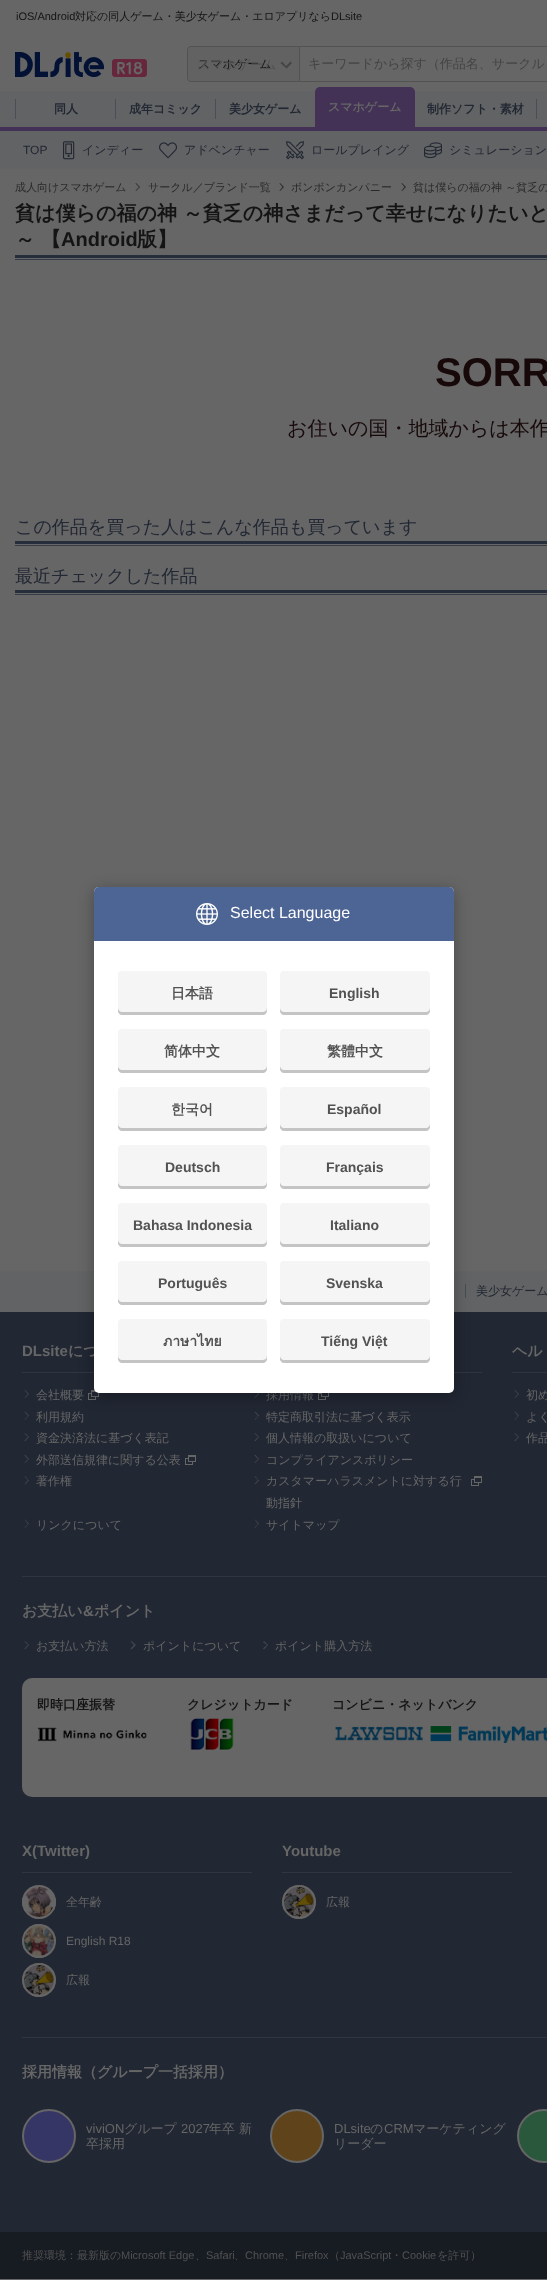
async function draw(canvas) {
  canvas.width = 547
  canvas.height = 2280
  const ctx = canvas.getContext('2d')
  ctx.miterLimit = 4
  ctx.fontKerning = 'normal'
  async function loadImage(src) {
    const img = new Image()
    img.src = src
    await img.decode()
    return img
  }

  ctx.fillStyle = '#666'
  ctx.fillRect(0, 0, 547, 2280)
  ctx.font = '11px Liberation Sans'
  ctx.fillStyle = '#141414'
  ctx.fillText('iOS/Android', 16, 20)
  ctx.font = '500 11px WenQuanYi Zen Hei'
  ctx.fillText('対応の同人ゲーム・美少女ゲーム・エロアプリなら', 75, 20)
  ctx.font = '11px Liberation Sans'
  ctx.fillText('DLsite', 331, 20)
  ctx.drawImage(await loadImage('image0.png'), 15, 52, 132, 25)
  ctx.beginPath()
  ctx.roundRect(187.5, 46.5, 112, 35, [3.5, 0, 0, 3.5])
  ctx.strokeStyle = '#525252'
  ctx.stroke()
  ctx.fillStyle = '#626262'
  ctx.beginPath()
  ctx.roundRect(188, 47, 111, 34, [4, 0, 0, 4])
  ctx.fill()
  ctx.font = '500 12px WenQuanYi Zen Hei'
  ctx.fillStyle = '#141414'
  ctx.fillText('スマホゲーム', 198, 68)
  ctx.font = '500 13px WenQuanYi Zen Hei'
  ctx.fillStyle = '#525252'
  ctx.fillText('スマホゲーム', 197, 69)
  ctx.fillStyle = '#444'
  ctx.beginPath()
  ctx.moveTo(282, 61.5)
  ctx.lineTo(280.5, 63)
  ctx.lineTo(286.5, 68.5)
  ctx.lineTo(292, 63)
  ctx.lineTo(290.5, 61.5)
  ctx.lineTo(286, 66)
  ctx.closePath()
  ctx.fill()
  ctx.fillStyle = '#525252'
  ctx.fillRect(300, 46, 247, 1)
  ctx.fillRect(300, 81, 247, 1)
  ctx.fillStyle = '#444'
  ctx.fillText('キーワードから探す（作品名、サークル', 308, 68)
  ctx.fillStyle = '#626364'
  ctx.fillRect(0, 91, 547, 36)
  ctx.fillStyle = '#4a4e57'
  ctx.fillRect(15, 99, 1, 20)
  ctx.font = 'bold 12px WenQuanYi Zen Hei'
  ctx.fillStyle = '#212733'
  ctx.fillText('同人', 54, 113)
  ctx.fillStyle = '#4a4e57'
  ctx.fillRect(115, 99, 1, 20)
  ctx.fillStyle = '#212733'
  ctx.fillText('成年コミック', 129, 113)
  ctx.fillStyle = '#4a4e57'
  ctx.fillRect(215, 99, 1, 20)
  ctx.fillStyle = '#212733'
  ctx.fillText('美少女ゲーム', 229, 113)
  ctx.fillStyle = '#433256'
  ctx.beginPath()
  ctx.roundRect(315, 87, 100, 40, [5, 5, 0, 0])
  ctx.fill()
  ctx.fillStyle = '#666'
  ctx.fillText('スマホゲーム', 328, 111)
  ctx.fillStyle = '#433256'
  ctx.fillRect(0, 127, 547, 4)
  ctx.fillStyle = '#212733'
  ctx.fillText('制作ソフト・素材', 427, 113)
  ctx.fillStyle = '#4a4e57'
  ctx.fillRect(536, 99, 1, 20)
  ctx.fillStyle = '#626364'
  ctx.fillRect(0, 131, 547, 38)
  ctx.font = '12px Liberation Sans'
  ctx.fillStyle = '#212733'
  ctx.fillText('TOP', 23, 154)
  ctx.drawImage(await loadImage('image1.png'), 63, 141, 12, 19)
  ctx.font = '500 12px WenQuanYi Zen Hei'
  ctx.fillText('インディー', 82, 154)
  ctx.drawImage(await loadImage('image2.png'), 159, 142, 18, 17)
  ctx.fillText('アドベンチャー', 184, 154)
  ctx.drawImage(await loadImage('image3.png'), 286, 141, 18, 19)
  ctx.fillText('ロールプレイング', 311, 154)
  ctx.drawImage(await loadImage('image4.png'), 424, 142, 18, 17)
  ctx.fillText('シミュレーション', 449, 154)
  ctx.font = '500 11px WenQuanYi Zen Hei'
  ctx.fillStyle = '#292929'
  ctx.fillText('成人向けスマホゲーム', 15, 191)
  ctx.beginPath()
  ctx.moveTo(135.5, 190.5)
  ctx.lineTo(136, 191)
  ctx.lineTo(140, 187)
  ctx.lineTo(136, 183)
  ctx.lineTo(135.5, 183.5)
  ctx.lineTo(139, 187)
  ctx.closePath()
  ctx.fill()
  ctx.fillText('サークル／ブランド一覧', 148, 191)
  ctx.beginPath()
  ctx.moveTo(279.5, 190.5)
  ctx.lineTo(280, 191)
  ctx.lineTo(284, 187)
  ctx.lineTo(280, 183)
  ctx.lineTo(279.5, 183.5)
  ctx.lineTo(282.5, 187)
  ctx.closePath()
  ctx.fill()
  ctx.fillText('ボンボンカンパニー', 291, 191)
  ctx.beginPath()
  ctx.moveTo(401.5, 190.5)
  ctx.lineTo(402, 191)
  ctx.lineTo(406, 187)
  ctx.lineTo(402, 183)
  ctx.lineTo(401.5, 183.5)
  ctx.lineTo(404.5, 187)
  ctx.closePath()
  ctx.fill()
  ctx.fillText('貧は僕らの福の神 ～貧乏の', 413, 191)
  ctx.drawImage(await loadImage('image5.png'), 15, 255, 532, 5)
  ctx.font = 'bold 20px WenQuanYi Zen Hei'
  ctx.fillStyle = '#141414'
  ctx.fillText('貧は僕らの福の神 ～貧乏の神さまだって幸せになりたいと', 15, 220)
  ctx.fillText('～ 【', 15, 246)
  ctx.font = 'bold 20px Liberation Sans'
  ctx.fillText('Android', 61, 246)
  ctx.font = 'bold 20px WenQuanYi Zen Hei'
  ctx.fillText('版】', 137, 246)
  ctx.font = 'bold 40px Liberation Sans'
  ctx.fillStyle = '#170909'
  ctx.fillText('SORR', 435, 386)
  ctx.font = '500 20px WenQuanYi Zen Hei'
  ctx.fillText('お住いの国・地域からは本作', 287, 435)
  ctx.drawImage(await loadImage('image5.png'), 15, 541, 532, 5)
  ctx.font = '500 18px WenQuanYi Zen Hei'
  ctx.fillStyle = '#212733'
  ctx.fillText('この作品を買った人はこんな作品も買っています', 15, 533)
  ctx.drawImage(await loadImage('image5.png'), 15, 590, 532, 5)
  ctx.fillText('最近チェックした作品', 15, 582)
  ctx.fillStyle = '#626364'
  ctx.fillRect(0, 1271, 547, 41)
  ctx.font = '500 12px WenQuanYi Zen Hei'
  ctx.fillStyle = '#212733'
  ctx.fillText('美少女ゲーム', 476, 1295)
  ctx.fillStyle = '#494c53'
  ctx.fillRect(465, 1284, 1, 14)
  ctx.fillStyle = '#212733'
  ctx.fillRect(0, 1312, 547, 920)
  ctx.fillStyle = '#303641'
  ctx.fillRect(22, 1372, 460, 1)
  ctx.font = 'bold 15px Liberation Sans'
  ctx.fillStyle = '#666'
  ctx.fillText('DLsite', 22, 1356)
  ctx.font = 'bold 15px WenQuanYi Zen Hei'
  ctx.fillText('につ', 68, 1356)
  ctx.fillStyle = '#44474d'
  ctx.beginPath()
  ctx.moveTo(25, 1390)
  ctx.lineTo(24.5, 1390.5)
  ctx.lineTo(28, 1394)
  ctx.lineTo(24.5, 1397.5)
  ctx.lineTo(25, 1398)
  ctx.lineTo(29, 1394)
  ctx.closePath()
  ctx.fill()
  ctx.drawImage(await loadImage('image6.png'), 88, 1390, 11, 10)
  ctx.font = '500 12px WenQuanYi Zen Hei'
  ctx.fillStyle = '#666'
  ctx.fillText('会社概要', 36, 1399)
  ctx.fillStyle = '#44474d'
  ctx.beginPath()
  ctx.moveTo(255, 1390)
  ctx.lineTo(254.5, 1390.5)
  ctx.lineTo(258, 1394)
  ctx.lineTo(254.5, 1397.5)
  ctx.lineTo(255, 1398)
  ctx.lineTo(259, 1394)
  ctx.closePath()
  ctx.fill()
  ctx.drawImage(await loadImage('image7.png'), 318, 1393, 11, 7)
  ctx.fillStyle = '#666'
  ctx.fillText('採用情報', 266, 1399)
  ctx.fillStyle = '#44474d'
  ctx.beginPath()
  ctx.moveTo(25, 1411.5)
  ctx.lineTo(24.5, 1412)
  ctx.lineTo(28, 1416)
  ctx.lineTo(24.5, 1419.5)
  ctx.lineTo(25, 1420)
  ctx.lineTo(29, 1415.5)
  ctx.closePath()
  ctx.fill()
  ctx.fillStyle = '#666'
  ctx.fillText('利用規約', 36, 1421)
  ctx.fillStyle = '#44474d'
  ctx.beginPath()
  ctx.moveTo(255, 1411.5)
  ctx.lineTo(254.5, 1412)
  ctx.lineTo(258, 1416)
  ctx.lineTo(254.5, 1419.5)
  ctx.lineTo(255, 1420)
  ctx.lineTo(259, 1415.5)
  ctx.closePath()
  ctx.fill()
  ctx.fillStyle = '#666'
  ctx.fillText('特定商取引法に基づく表示', 266, 1421)
  ctx.fillStyle = '#44474d'
  ctx.beginPath()
  ctx.moveTo(25, 1433)
  ctx.lineTo(24.5, 1433.5)
  ctx.lineTo(28, 1437)
  ctx.lineTo(24.5, 1440.5)
  ctx.lineTo(25, 1441.5)
  ctx.lineTo(29, 1437)
  ctx.closePath()
  ctx.fill()
  ctx.fillStyle = '#666'
  ctx.fillText('資金決済法に基づく表記', 36, 1442)
  ctx.fillStyle = '#44474d'
  ctx.beginPath()
  ctx.moveTo(255, 1433)
  ctx.lineTo(254.5, 1433.5)
  ctx.lineTo(258, 1437)
  ctx.lineTo(254.5, 1440.5)
  ctx.lineTo(255, 1441.5)
  ctx.lineTo(259, 1437)
  ctx.closePath()
  ctx.fill()
  ctx.fillStyle = '#666'
  ctx.fillText('個人情報の取扱いについて', 266, 1442)
  ctx.fillStyle = '#44474d'
  ctx.beginPath()
  ctx.moveTo(25, 1454.5)
  ctx.lineTo(24.5, 1455.5)
  ctx.lineTo(28, 1459)
  ctx.lineTo(24.5, 1462.5)
  ctx.lineTo(25, 1463)
  ctx.lineTo(29, 1459)
  ctx.closePath()
  ctx.fill()
  ctx.drawImage(await loadImage('image6.png'), 185, 1455, 11, 10)
  ctx.fillStyle = '#666'
  ctx.fillText('外部送信規律に関する公表', 36, 1464)
  ctx.fillStyle = '#44474d'
  ctx.beginPath()
  ctx.moveTo(255, 1454.5)
  ctx.lineTo(254.5, 1455.5)
  ctx.lineTo(258, 1459)
  ctx.lineTo(254.5, 1462.5)
  ctx.lineTo(255, 1463)
  ctx.lineTo(259, 1459)
  ctx.closePath()
  ctx.fill()
  ctx.fillStyle = '#666'
  ctx.fillText('コンプライアンスポリシー', 266, 1464)
  ctx.fillStyle = '#44474d'
  ctx.beginPath()
  ctx.moveTo(25, 1476)
  ctx.lineTo(24.5, 1476.5)
  ctx.lineTo(28, 1480)
  ctx.lineTo(24.5, 1484)
  ctx.lineTo(25, 1484.5)
  ctx.lineTo(29, 1480.5)
  ctx.closePath()
  ctx.fill()
  ctx.fillStyle = '#666'
  ctx.fillText('著作権', 36, 1485)
  ctx.fillStyle = '#44474d'
  ctx.beginPath()
  ctx.moveTo(255, 1476)
  ctx.lineTo(254.5, 1476.5)
  ctx.lineTo(258, 1480)
  ctx.lineTo(254.5, 1484)
  ctx.lineTo(255, 1484.5)
  ctx.lineTo(259, 1480.5)
  ctx.closePath()
  ctx.fill()
  ctx.drawImage(await loadImage('image6.png'), 471, 1476, 11, 10)
  ctx.fillStyle = '#666'
  ctx.fillText('カスタマーハラスメントに対する行', 266, 1485)
  ctx.fillText('動指針', 266, 1507)
  ctx.fillStyle = '#44474d'
  ctx.beginPath()
  ctx.moveTo(25, 1519.5)
  ctx.lineTo(24.5, 1519.5)
  ctx.lineTo(28, 1524)
  ctx.lineTo(24.5, 1527.5)
  ctx.lineTo(25, 1528)
  ctx.lineTo(29, 1523.5)
  ctx.closePath()
  ctx.fill()
  ctx.fillStyle = '#666'
  ctx.fillText('リンクについて', 36, 1529)
  ctx.fillStyle = '#44474d'
  ctx.beginPath()
  ctx.moveTo(255, 1519.5)
  ctx.lineTo(254.5, 1519.5)
  ctx.lineTo(258, 1524)
  ctx.lineTo(254.5, 1527.5)
  ctx.lineTo(255, 1528)
  ctx.lineTo(259, 1523.5)
  ctx.closePath()
  ctx.fill()
  ctx.fillStyle = '#666'
  ctx.fillText('サイトマップ', 266, 1529)
  ctx.fillStyle = '#303641'
  ctx.fillRect(512, 1372, 35, 1)
  ctx.font = 'bold 15px WenQuanYi Zen Hei'
  ctx.fillStyle = '#666'
  ctx.fillText('ヘル', 512, 1356)
  ctx.fillStyle = '#44474d'
  ctx.beginPath()
  ctx.moveTo(515, 1390)
  ctx.lineTo(514.5, 1390.5)
  ctx.lineTo(518, 1394)
  ctx.lineTo(514.5, 1397.5)
  ctx.lineTo(515, 1398)
  ctx.lineTo(519, 1394)
  ctx.closePath()
  ctx.moveTo(515, 1411.5)
  ctx.lineTo(514.5, 1412)
  ctx.lineTo(518, 1416)
  ctx.lineTo(514.5, 1419.5)
  ctx.lineTo(515, 1420)
  ctx.lineTo(519, 1415.5)
  ctx.closePath()
  ctx.moveTo(515, 1433)
  ctx.lineTo(514.5, 1433.5)
  ctx.lineTo(518, 1437)
  ctx.lineTo(514.5, 1440.5)
  ctx.lineTo(515, 1441.5)
  ctx.lineTo(519, 1437)
  ctx.closePath()
  ctx.fill()
  ctx.font = '500 12px WenQuanYi Zen Hei'
  ctx.fillStyle = '#666'
  ctx.fillText('初め', 526, 1399)
  ctx.fillText('よく', 526, 1421)
  ctx.fillText('作品', 526, 1442)
  ctx.fillStyle = '#303641'
  ctx.fillRect(22, 1576, 525, 1)
  ctx.font = 'bold 15px WenQuanYi Zen Hei'
  ctx.fillStyle = '#666'
  ctx.fillText('お支払い', 22, 1616)
  ctx.font = 'bold 15px Liberation Sans'
  ctx.fillText('&', 83, 1616)
  ctx.font = 'bold 15px WenQuanYi Zen Hei'
  ctx.fillText('ポイント', 94, 1616)
  ctx.fillStyle = '#44474d'
  ctx.beginPath()
  ctx.moveTo(25, 1641)
  ctx.lineTo(24.5, 1641.5)
  ctx.lineTo(28, 1645)
  ctx.lineTo(24.5, 1648.5)
  ctx.lineTo(25, 1649.5)
  ctx.lineTo(29, 1645)
  ctx.closePath()
  ctx.fill()
  ctx.font = '500 12px WenQuanYi Zen Hei'
  ctx.fillStyle = '#666'
  ctx.fillText('お支払い方法', 36, 1650)
  ctx.fillStyle = '#44474d'
  ctx.beginPath()
  ctx.moveTo(131.5, 1641)
  ctx.lineTo(130.5, 1641.5)
  ctx.lineTo(134, 1645)
  ctx.lineTo(130.5, 1648.5)
  ctx.lineTo(131.5, 1649.5)
  ctx.lineTo(136, 1645)
  ctx.closePath()
  ctx.fill()
  ctx.fillStyle = '#666'
  ctx.fillText('ポイントについて', 143, 1650)
  ctx.fillStyle = '#44474d'
  ctx.beginPath()
  ctx.moveTo(264, 1641)
  ctx.lineTo(263, 1642)
  ctx.lineTo(267, 1645)
  ctx.lineTo(263, 1648.5)
  ctx.lineTo(264, 1649.5)
  ctx.lineTo(268, 1645)
  ctx.closePath()
  ctx.fill()
  ctx.fillStyle = '#666'
  ctx.fillText('ポイント購入方法', 275, 1650)
  ctx.beginPath()
  ctx.roundRect(22, 1678, 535, 119, 10)
  ctx.fill()
  ctx.font = 'bold 13px WenQuanYi Zen Hei'
  ctx.fillStyle = '#141414'
  ctx.fillText('即時口座振替', 37, 1709)
  ctx.drawImage(await loadImage('image8.png'), 37, 1727, 110, 15)
  ctx.fillText('クレジットカード', 187, 1709)
  ctx.drawImage(await loadImage('image9.png'), 190, 1718, 44, 32)
  ctx.fillText('コンビニ・ネットバンク', 332, 1709)
  ctx.drawImage(await loadImage('image10.png'), 335, 1726, 92, 16)
  ctx.drawImage(await loadImage('image11.png'), 430, 1726, 117, 17)
  ctx.fillStyle = '#303641'
  ctx.fillRect(22, 1872, 230, 1)
  ctx.font = 'bold 15px Liberation Sans'
  ctx.fillStyle = '#666'
  ctx.fillText('X(Twitter)', 22, 1856)
  ctx.drawImage(await loadImage('image12.png'), 22, 1885, 34, 34)
  ctx.beginPath()
  ctx.arc(39, 1902, 16, 0, 2 * Math.PI)
  ctx.strokeStyle = '#666'
  ctx.lineWidth = 2
  ctx.stroke()
  ctx.font = '500 12px WenQuanYi Zen Hei'
  ctx.fillText('全年齢', 66, 1906)
  ctx.drawImage(await loadImage('image13.png'), 22, 1924, 34, 34)
  ctx.beginPath()
  ctx.arc(39, 1941, 16, 0, 2 * Math.PI)
  ctx.stroke()
  ctx.font = '12px Liberation Sans'
  ctx.fillText('English R18', 66, 1945)
  ctx.drawImage(await loadImage('image14.png'), 22, 1963, 34, 34)
  ctx.beginPath()
  ctx.arc(39, 1980, 16, 0, 2 * Math.PI)
  ctx.stroke()
  ctx.font = '500 12px WenQuanYi Zen Hei'
  ctx.fillText('広報', 66, 1984)
  ctx.fillStyle = '#303641'
  ctx.fillRect(282, 1872, 230, 1)
  ctx.font = 'bold 15px Liberation Sans'
  ctx.fillStyle = '#666'
  ctx.fillText('Youtube', 282, 1856)
  ctx.drawImage(await loadImage('image14.png'), 282, 1885, 34, 34)
  ctx.beginPath()
  ctx.arc(299, 1902, 16, 0, 2 * Math.PI)
  ctx.stroke()
  ctx.font = '500 12px WenQuanYi Zen Hei'
  ctx.fillText('広報', 326, 1906)
  ctx.fillStyle = '#303641'
  ctx.fillRect(22, 2037, 525, 1)
  ctx.font = 'bold 15px WenQuanYi Zen Hei'
  ctx.fillStyle = '#666'
  ctx.fillText('採用情報（グループ一括採用）', 22, 2077)
  ctx.fillStyle = '#363666'
  ctx.beginPath()
  ctx.arc(49, 2136, 26, 0, 2 * Math.PI)
  ctx.fill()
  ctx.stroke()
  ctx.font = '13px Liberation Sans'
  ctx.fillStyle = '#666'
  ctx.fillText('viviON', 86, 2133)
  ctx.font = '500 13px WenQuanYi Zen Hei'
  ctx.fillText('グループ', 124, 2133)
  ctx.font = '13px Liberation Sans'
  ctx.fillText('2027', 181, 2133)
  ctx.font = '500 13px WenQuanYi Zen Hei'
  ctx.fillText('年卒 新', 209, 2133)
  ctx.fillText('卒採用', 86, 2148)
  ctx.fillStyle = '#5f441b'
  ctx.beginPath()
  ctx.arc(297, 2136, 26, 0, 2 * Math.PI)
  ctx.fill()
  ctx.stroke()
  ctx.font = '13px Liberation Sans'
  ctx.fillStyle = '#666'
  ctx.fillText('DLsite', 334, 2133)
  ctx.font = '500 13px WenQuanYi Zen Hei'
  ctx.fillText('の', 370, 2133)
  ctx.font = '13px Liberation Sans'
  ctx.fillText('CRM', 384, 2133)
  ctx.font = '500 13px WenQuanYi Zen Hei'
  ctx.fillText('マーケティング', 413, 2133)
  ctx.fillText('リーダー', 334, 2148)
  ctx.fillStyle = '#29583d'
  ctx.beginPath()
  ctx.arc(544, 2136, 26, 0, 2 * Math.PI)
  ctx.fill()
  ctx.stroke()
  ctx.fillStyle = '#171b22'
  ctx.fillRect(0, 2232, 547, 47)
  ctx.font = '500 11px WenQuanYi Zen Hei'
  ctx.fillStyle = '#525252'
  ctx.fillText('推奨環境：最新版の', 22, 2259)
  ctx.font = '11px Liberation Sans'
  ctx.fillText('Microsoft Edge', 121, 2259)
  ctx.fillText('Safari', 206, 2259)
  ctx.fillText('Chrome', 245, 2259)
  ctx.fillText('Firefox', 295, 2259)
  ctx.font = '500 11px WenQuanYi Zen Hei'
  ctx.fillText('（', 329, 2259)
  ctx.font = '11px Liberation Sans'
  ctx.fillText('JavaScript', 340, 2259)
  ctx.font = '500 11px WenQuanYi Zen Hei'
  ctx.fillText('・', 391, 2259)
  ctx.font = '11px Liberation Sans'
  ctx.fillText('Cookie', 402, 2259)
  ctx.font = '500 11px WenQuanYi Zen Hei'
  ctx.fillText('を許可）', 437, 2259)
  ctx.fillText('、', 195, 2259)
  ctx.fillText('、', 234, 2259)
  ctx.fillText('、', 284, 2259)
  ctx.fillStyle = '#0000004d'
  ctx.filter = 'blur(7.5px)'
  ctx.beginPath()
  ctx.roundRect(94, 890, 360, 506, 5)
  ctx.fill()
  ctx.filter = 'none'
  ctx.fillStyle = '#fff'
  ctx.beginPath()
  ctx.roundRect(94, 887, 360, 506, 5)
  ctx.fill()
  ctx.fillStyle = '#4d6594'
  ctx.beginPath()
  ctx.roundRect(94, 887, 360, 54, [5, 5, 0, 0])
  ctx.fill()
  ctx.drawImage(await loadImage('image15.png'), 196, 903, 22, 22)
  ctx.font = '16px Liberation Sans'
  ctx.fillStyle = '#fff'
  ctx.fillText('Select Language', 230, 918)
  ctx.fillStyle = '#f5f5f5'
  ctx.beginPath()
  ctx.roundRect(118, 971, 149, 44, 4)
  ctx.fill()
  ctx.fillStyle = '#00000033'
  ctx.beginPath()
  ctx.moveTo(118, 1008)
  ctx.lineTo(118, 1011)
  ctx.bezierCurveTo(118, 1013, 120, 1015, 122, 1015)
  ctx.lineTo(263, 1015)
  ctx.bezierCurveTo(265, 1015, 267, 1013, 267, 1011)
  ctx.lineTo(267, 1008)
  ctx.lineTo(266, 1011)
  ctx.lineTo(263, 1012)
  ctx.lineTo(122, 1012)
  ctx.bezierCurveTo(120, 1012, 118, 1010, 118, 1008)
  ctx.closePath()
  ctx.fill()
  ctx.font = 'bold 14px WenQuanYi Zen Hei'
  ctx.fillStyle = '#525252'
  ctx.fillText('日本語', 171, 998)
  ctx.fillStyle = '#f5f5f5'
  ctx.beginPath()
  ctx.roundRect(280, 971, 150, 44, 4)
  ctx.fill()
  ctx.fillStyle = '#00000033'
  ctx.beginPath()
  ctx.moveTo(280, 1008)
  ctx.lineTo(280, 1011)
  ctx.bezierCurveTo(280, 1013, 282, 1015, 284, 1015)
  ctx.lineTo(426, 1015)
  ctx.bezierCurveTo(428, 1015, 430, 1013, 430, 1011)
  ctx.lineTo(430, 1008)
  ctx.bezierCurveTo(430, 1010, 428, 1012, 426, 1012)
  ctx.lineTo(284, 1012)
  ctx.bezierCurveTo(282, 1012, 280, 1010, 280, 1008)
  ctx.closePath()
  ctx.fill()
  ctx.font = 'bold 14px Liberation Sans'
  ctx.fillStyle = '#525252'
  ctx.fillText('English', 329, 998)
  ctx.fillStyle = '#f5f5f5'
  ctx.beginPath()
  ctx.roundRect(118, 1029, 149, 44, 4)
  ctx.fill()
  ctx.fillStyle = '#00000033'
  ctx.beginPath()
  ctx.moveTo(118, 1066)
  ctx.lineTo(118, 1069)
  ctx.bezierCurveTo(118, 1071, 120, 1073, 122, 1073)
  ctx.lineTo(263, 1073)
  ctx.bezierCurveTo(265, 1073, 267, 1071, 267, 1069)
  ctx.lineTo(267, 1066)
  ctx.lineTo(266, 1069)
  ctx.lineTo(263, 1070)
  ctx.lineTo(122, 1070)
  ctx.bezierCurveTo(120, 1070, 118, 1068, 118, 1066)
  ctx.closePath()
  ctx.fill()
  ctx.font = 'bold 14px WenQuanYi Zen Hei'
  ctx.fillStyle = '#525252'
  ctx.fillText('简体中文', 164, 1056)
  ctx.fillStyle = '#f5f5f5'
  ctx.beginPath()
  ctx.roundRect(280, 1029, 150, 44, 4)
  ctx.fill()
  ctx.fillStyle = '#00000033'
  ctx.beginPath()
  ctx.moveTo(280, 1066)
  ctx.lineTo(280, 1069)
  ctx.bezierCurveTo(280, 1071, 282, 1073, 284, 1073)
  ctx.lineTo(426, 1073)
  ctx.bezierCurveTo(428, 1073, 430, 1071, 430, 1069)
  ctx.lineTo(430, 1066)
  ctx.bezierCurveTo(430, 1068, 428, 1070, 426, 1070)
  ctx.lineTo(284, 1070)
  ctx.bezierCurveTo(282, 1070, 280, 1068, 280, 1066)
  ctx.closePath()
  ctx.fill()
  ctx.fillStyle = '#525252'
  ctx.fillText('繁體中文', 327, 1056)
  ctx.fillStyle = '#f5f5f5'
  ctx.beginPath()
  ctx.roundRect(118, 1087, 149, 44, 4)
  ctx.fill()
  ctx.fillStyle = '#00000033'
  ctx.beginPath()
  ctx.moveTo(118, 1124)
  ctx.lineTo(118, 1127)
  ctx.bezierCurveTo(118, 1129, 120, 1131, 122, 1131)
  ctx.lineTo(263, 1131)
  ctx.bezierCurveTo(265, 1131, 267, 1129, 267, 1127)
  ctx.lineTo(267, 1124)
  ctx.lineTo(266, 1127)
  ctx.lineTo(263, 1128)
  ctx.lineTo(122, 1128)
  ctx.bezierCurveTo(120, 1128, 118, 1126, 118, 1124)
  ctx.closePath()
  ctx.fill()
  ctx.fillStyle = '#525252'
  ctx.fillText('한국어', 171, 1114)
  ctx.fillStyle = '#f5f5f5'
  ctx.beginPath()
  ctx.roundRect(280, 1087, 150, 44, 4)
  ctx.fill()
  ctx.fillStyle = '#00000033'
  ctx.beginPath()
  ctx.moveTo(280, 1124)
  ctx.lineTo(280, 1127)
  ctx.bezierCurveTo(280, 1129, 282, 1131, 284, 1131)
  ctx.lineTo(426, 1131)
  ctx.bezierCurveTo(428, 1131, 430, 1129, 430, 1127)
  ctx.lineTo(430, 1124)
  ctx.bezierCurveTo(430, 1126, 428, 1128, 426, 1128)
  ctx.lineTo(284, 1128)
  ctx.bezierCurveTo(282, 1128, 280, 1126, 280, 1124)
  ctx.closePath()
  ctx.fill()
  ctx.font = 'bold 14px Liberation Sans'
  ctx.fillStyle = '#525252'
  ctx.fillText('Español', 327, 1114)
  ctx.fillStyle = '#f5f5f5'
  ctx.beginPath()
  ctx.roundRect(118, 1145, 149, 44, 4)
  ctx.fill()
  ctx.fillStyle = '#00000033'
  ctx.beginPath()
  ctx.moveTo(118, 1182)
  ctx.lineTo(118, 1185)
  ctx.bezierCurveTo(118, 1187, 120, 1189, 122, 1189)
  ctx.lineTo(263, 1189)
  ctx.bezierCurveTo(265, 1189, 267, 1187, 267, 1185)
  ctx.lineTo(267, 1182)
  ctx.lineTo(266, 1185)
  ctx.lineTo(263, 1186)
  ctx.lineTo(122, 1186)
  ctx.bezierCurveTo(120, 1186, 118, 1184, 118, 1182)
  ctx.closePath()
  ctx.fill()
  ctx.fillStyle = '#525252'
  ctx.fillText('Deutsch', 165, 1172)
  ctx.fillStyle = '#f5f5f5'
  ctx.beginPath()
  ctx.roundRect(280, 1145, 150, 44, 4)
  ctx.fill()
  ctx.fillStyle = '#00000033'
  ctx.beginPath()
  ctx.moveTo(280, 1182)
  ctx.lineTo(280, 1185)
  ctx.bezierCurveTo(280, 1187, 282, 1189, 284, 1189)
  ctx.lineTo(426, 1189)
  ctx.bezierCurveTo(428, 1189, 430, 1187, 430, 1185)
  ctx.lineTo(430, 1182)
  ctx.bezierCurveTo(430, 1184, 428, 1186, 426, 1186)
  ctx.lineTo(284, 1186)
  ctx.bezierCurveTo(282, 1186, 280, 1184, 280, 1182)
  ctx.closePath()
  ctx.fill()
  ctx.fillStyle = '#525252'
  ctx.fillText('Français', 326, 1172)
  ctx.fillStyle = '#f5f5f5'
  ctx.beginPath()
  ctx.roundRect(118, 1203, 149, 44, 4)
  ctx.fill()
  ctx.fillStyle = '#00000033'
  ctx.beginPath()
  ctx.moveTo(118, 1240)
  ctx.lineTo(118, 1243)
  ctx.bezierCurveTo(118, 1245, 120, 1247, 122, 1247)
  ctx.lineTo(263, 1247)
  ctx.bezierCurveTo(265, 1247, 267, 1245, 267, 1243)
  ctx.lineTo(267, 1240)
  ctx.lineTo(266, 1243)
  ctx.lineTo(263, 1244)
  ctx.lineTo(122, 1244)
  ctx.bezierCurveTo(120, 1244, 118, 1242, 118, 1240)
  ctx.closePath()
  ctx.fill()
  ctx.fillStyle = '#525252'
  ctx.fillText('Bahasa Indonesia', 133, 1230)
  ctx.fillStyle = '#f5f5f5'
  ctx.beginPath()
  ctx.roundRect(280, 1203, 150, 44, 4)
  ctx.fill()
  ctx.fillStyle = '#00000033'
  ctx.beginPath()
  ctx.moveTo(280, 1240)
  ctx.lineTo(280, 1243)
  ctx.bezierCurveTo(280, 1245, 282, 1247, 284, 1247)
  ctx.lineTo(426, 1247)
  ctx.bezierCurveTo(428, 1247, 430, 1245, 430, 1243)
  ctx.lineTo(430, 1240)
  ctx.bezierCurveTo(430, 1242, 428, 1244, 426, 1244)
  ctx.lineTo(284, 1244)
  ctx.bezierCurveTo(282, 1244, 280, 1242, 280, 1240)
  ctx.closePath()
  ctx.fill()
  ctx.fillStyle = '#525252'
  ctx.fillText('Italiano', 330, 1230)
  ctx.fillStyle = '#f5f5f5'
  ctx.beginPath()
  ctx.roundRect(118, 1261, 149, 44, 4)
  ctx.fill()
  ctx.fillStyle = '#00000033'
  ctx.beginPath()
  ctx.moveTo(118, 1298)
  ctx.lineTo(118, 1301)
  ctx.bezierCurveTo(118, 1303, 120, 1305, 122, 1305)
  ctx.lineTo(263, 1305)
  ctx.bezierCurveTo(265, 1305, 267, 1303, 267, 1301)
  ctx.lineTo(267, 1298)
  ctx.lineTo(266, 1301)
  ctx.lineTo(263, 1302)
  ctx.lineTo(122, 1302)
  ctx.bezierCurveTo(120, 1302, 118, 1300, 118, 1298)
  ctx.closePath()
  ctx.fill()
  ctx.fillStyle = '#525252'
  ctx.fillText('Português', 158, 1288)
  ctx.fillStyle = '#f5f5f5'
  ctx.beginPath()
  ctx.roundRect(280, 1261, 150, 44, 4)
  ctx.fill()
  ctx.fillStyle = '#00000033'
  ctx.beginPath()
  ctx.moveTo(280, 1298)
  ctx.lineTo(280, 1301)
  ctx.bezierCurveTo(280, 1303, 282, 1305, 284, 1305)
  ctx.lineTo(426, 1305)
  ctx.bezierCurveTo(428, 1305, 430, 1303, 430, 1301)
  ctx.lineTo(430, 1298)
  ctx.bezierCurveTo(430, 1300, 428, 1302, 426, 1302)
  ctx.lineTo(284, 1302)
  ctx.bezierCurveTo(282, 1302, 280, 1300, 280, 1298)
  ctx.closePath()
  ctx.fill()
  ctx.fillStyle = '#525252'
  ctx.fillText('Svenska', 326, 1288)
  ctx.fillStyle = '#f5f5f5'
  ctx.beginPath()
  ctx.roundRect(118, 1319, 149, 44, 4)
  ctx.fill()
  ctx.fillStyle = '#00000033'
  ctx.beginPath()
  ctx.moveTo(118, 1356)
  ctx.lineTo(118, 1359)
  ctx.bezierCurveTo(118, 1361, 120, 1363, 122, 1363)
  ctx.lineTo(263, 1363)
  ctx.bezierCurveTo(265, 1363, 267, 1361, 267, 1359)
  ctx.lineTo(267, 1356)
  ctx.lineTo(266, 1359)
  ctx.lineTo(263, 1360)
  ctx.lineTo(122, 1360)
  ctx.bezierCurveTo(120, 1360, 118, 1358, 118, 1356)
  ctx.closePath()
  ctx.fill()
  ctx.font = 'bold 14px Loma'
  ctx.fillStyle = '#525252'
  ctx.fillText('ภาษาไทย', 163, 1346)
  ctx.fillStyle = '#f5f5f5'
  ctx.beginPath()
  ctx.roundRect(280, 1319, 150, 44, 4)
  ctx.fill()
  ctx.fillStyle = '#00000033'
  ctx.beginPath()
  ctx.moveTo(280, 1356)
  ctx.lineTo(280, 1359)
  ctx.bezierCurveTo(280, 1361, 282, 1363, 284, 1363)
  ctx.lineTo(426, 1363)
  ctx.bezierCurveTo(428, 1363, 430, 1361, 430, 1359)
  ctx.lineTo(430, 1356)
  ctx.bezierCurveTo(430, 1358, 428, 1360, 426, 1360)
  ctx.lineTo(284, 1360)
  ctx.bezierCurveTo(282, 1360, 280, 1358, 280, 1356)
  ctx.closePath()
  ctx.fill()
  ctx.font = 'bold 14px Liberation Sans'
  ctx.fillStyle = '#525252'
  ctx.fillText('Tiếng Việt', 321, 1346)
}

draw(document.querySelector('canvas'))
